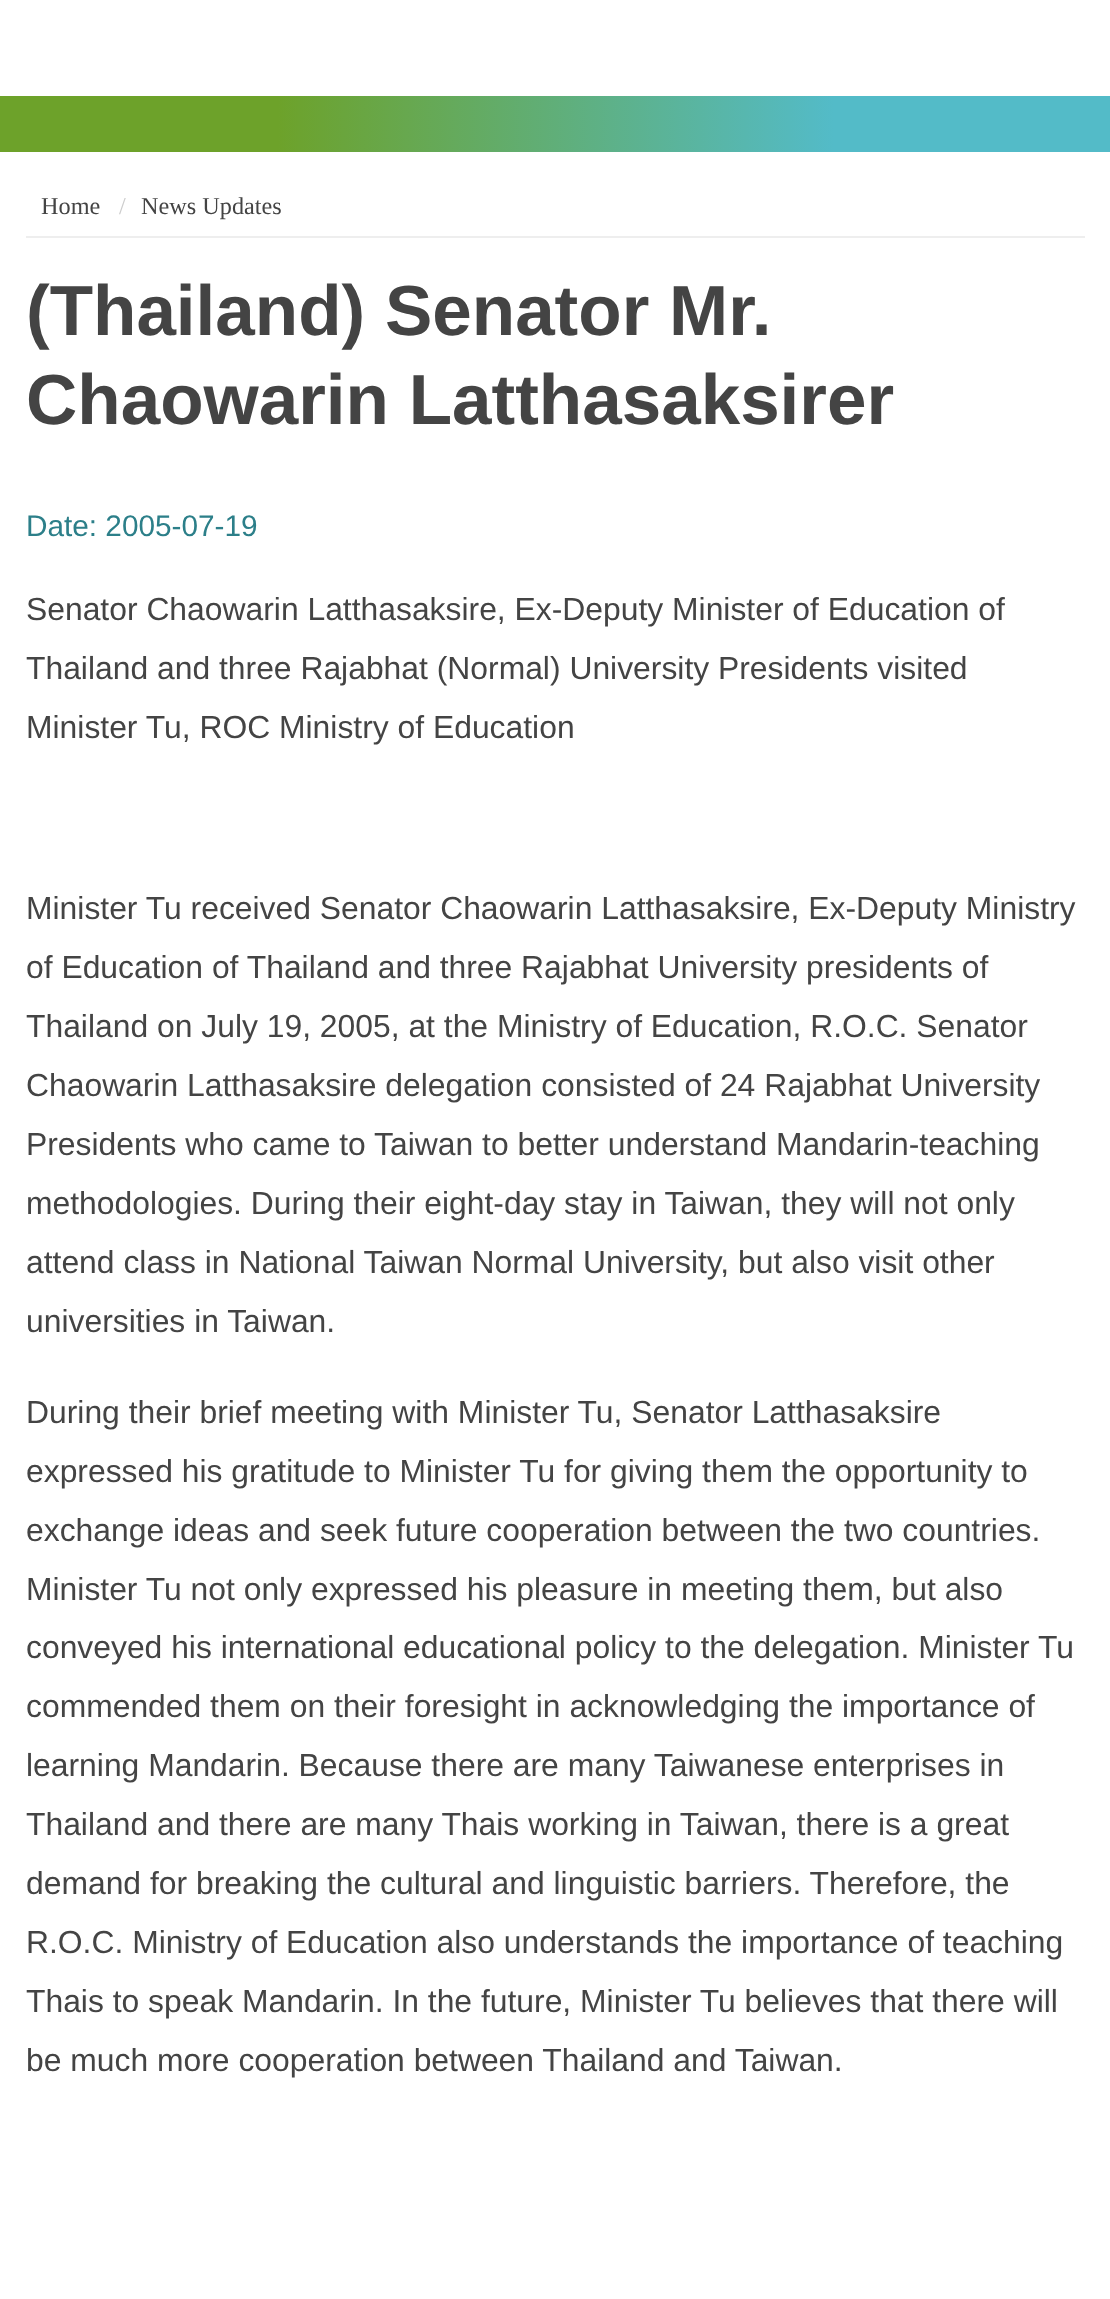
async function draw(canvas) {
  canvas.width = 1110
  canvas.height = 2299
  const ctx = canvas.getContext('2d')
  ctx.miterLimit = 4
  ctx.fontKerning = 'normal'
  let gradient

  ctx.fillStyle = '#fff'
  ctx.fillRect(0, 0, 1110, 2299)
  gradient = ctx.createLinearGradient(0, 124, 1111, 124)
  gradient.addColorStop(0.25, '#6da22a')
  gradient.addColorStop(0.75, '#53bbc8')
  ctx.fillStyle = gradient
  ctx.fillRect(0, 96, 1110, 56)
  ctx.fillStyle = '#eee'
  ctx.fillRect(26, 236, 1059, 2)
  ctx.font = '24.25px Liberation Serif'
  ctx.fillStyle = '#444'
  ctx.fillText('Home', 41, 214)
  ctx.fillStyle = '#ccc'
  ctx.fillText('/', 119, 214)
  ctx.fillStyle = '#444'
  ctx.fillText('News Updates', 141, 214)
  ctx.font = 'bold 71px Liberation Sans'
  ctx.fillText('(Thailand) Senator Mr.', 26, 335)
  ctx.fillText('Chaowarin Latthasaksirer', 26, 424)
  ctx.font = '29.75px Liberation Sans'
  ctx.fillStyle = '#2c7f89'
  ctx.fillText('Date: 2005-07-19', 26, 536)
  ctx.font = '31.85px Liberation Sans'
  ctx.fillStyle = '#444'
  ctx.fillText('Senator Chaowarin Latthasaksire, Ex-Deputy Minister of Education of', 26, 620)
  ctx.fillText('Thailand and three Rajabhat (Normal) University Presidents visited', 26, 679)
  ctx.fillText('Minister Tu, ROC Ministry of Education', 26, 738)
  ctx.fillText('Minister Tu received Senator Chaowarin Latthasaksire, Ex-Deputy Ministry', 26, 919)
  ctx.fillText('of Education of Thailand and three Rajabhat University presidents of', 26, 978)
  ctx.fillText('Thailand on July 19, 2005, at the Ministry of Education, R.O.C. Senator', 26, 1037)
  ctx.fillText('Chaowarin Latthasaksire delegation consisted of 24 Rajabhat University', 26, 1096)
  ctx.fillText('Presidents who came to Taiwan to better understand Mandarin-teaching', 26, 1155)
  ctx.fillText('methodologies. During their eight-day stay in Taiwan, they will not only', 26, 1214)
  ctx.fillText('attend class in National Taiwan Normal University, but also visit other', 26, 1273)
  ctx.fillText('universities in Taiwan.', 26, 1332)
  ctx.fillText('During their brief meeting with Minister Tu, Senator Latthasaksire', 26, 1423)
  ctx.fillText('expressed his gratitude to Minister Tu for giving them the opportunity to', 26, 1482)
  ctx.fillText('exchange ideas and seek future cooperation between the two countries.', 26, 1541)
  ctx.fillText('Minister Tu not only expressed his pleasure in meeting them, but also', 26, 1600)
  ctx.fillText('conveyed his international educational policy to the delegation. Minister Tu', 26, 1658)
  ctx.fillText('commended them on their foresight in acknowledging the importance of', 26, 1717)
  ctx.fillText('learning Mandarin. Because there are many Taiwanese enterprises in', 26, 1776)
  ctx.fillText('Thailand and there are many Thais working in Taiwan, there is a great', 26, 1835)
  ctx.fillText('demand for breaking the cultural and linguistic barriers. Therefore, the', 26, 1894)
  ctx.fillText('R.O.C. Ministry of Education also understands the importance of teaching', 26, 1953)
  ctx.fillText('Thais to speak Mandarin. In the future, Minister Tu believes that there will', 26, 2012)
  ctx.fillText('be much more cooperation between Thailand and Taiwan.', 26, 2071)
}

draw(document.querySelector('canvas'))
